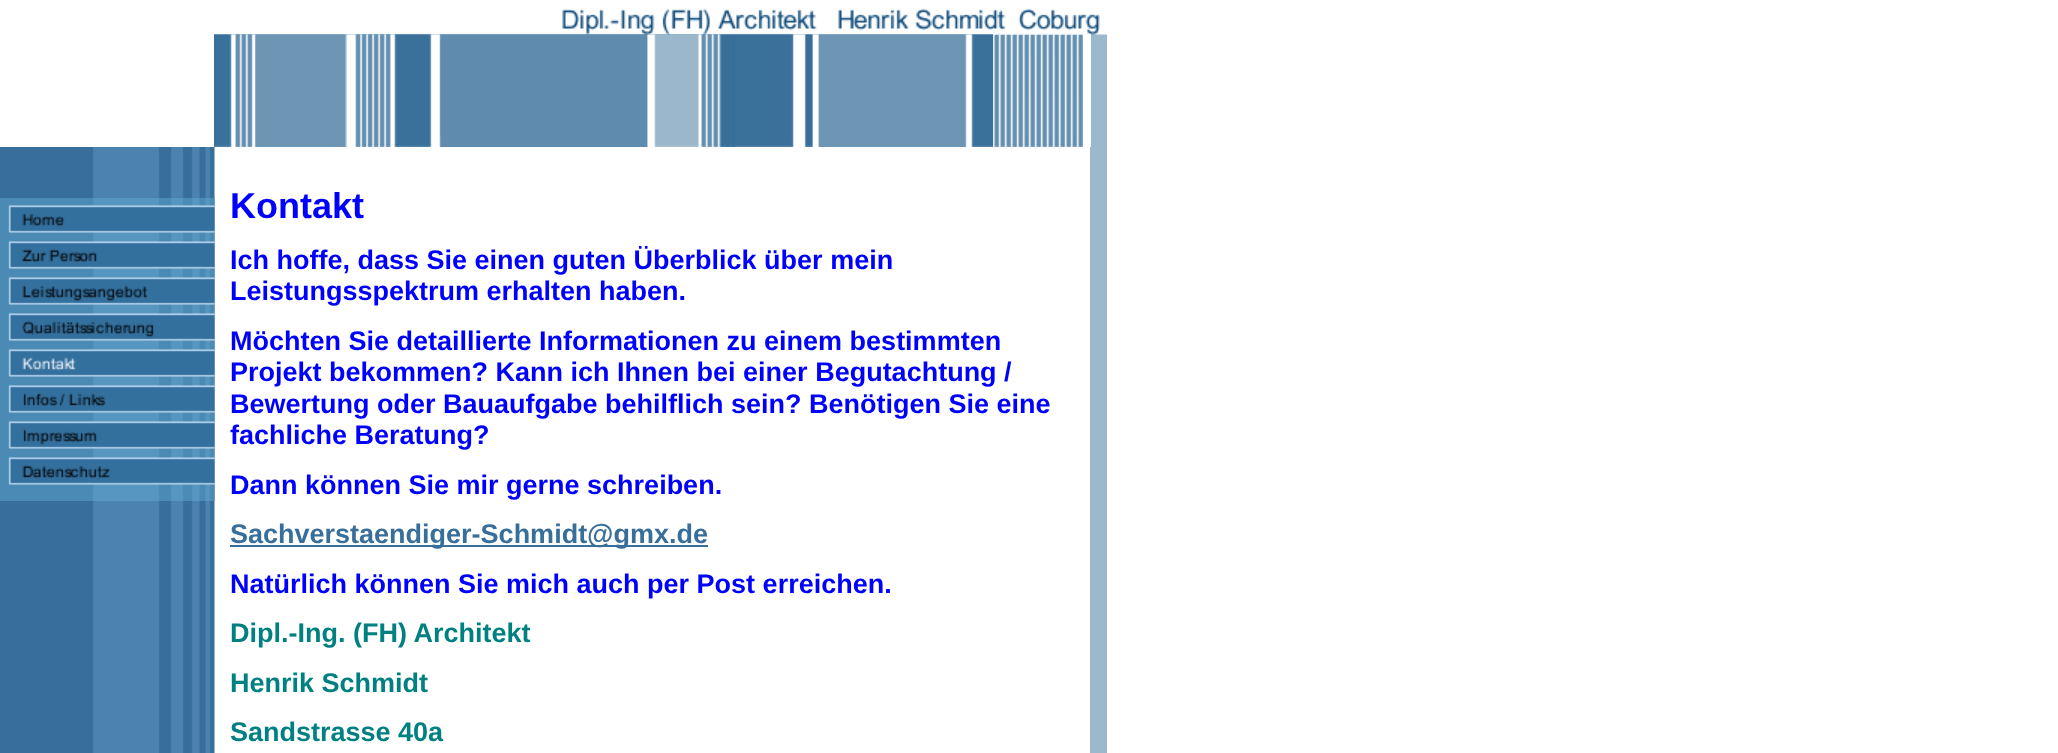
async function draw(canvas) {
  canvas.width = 2058
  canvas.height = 753
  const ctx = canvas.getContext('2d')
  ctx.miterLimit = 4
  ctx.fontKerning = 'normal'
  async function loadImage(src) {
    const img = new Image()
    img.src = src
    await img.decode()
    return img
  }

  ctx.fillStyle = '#fff'
  ctx.fillRect(0, 0, 2058, 753)
  ctx.fillStyle = '#376f9a'
  ctx.fillRect(214, 34, 779, 113)
  ctx.drawImage(await loadImage('image2.png'), 993, 34, 90, 113)
  ctx.fillStyle = '#9cb8cd'
  ctx.fillRect(1090, 34, 17, 719)
  ctx.drawImage(await loadImage('image0.png'), 214, 8, 893, 27)
  ctx.drawImage(await loadImage('image1.png'), 214, 34, 779, 113)
  ctx.fillStyle = '#fff'
  ctx.fillRect(1088, 34, 3, 113)
  ctx.drawImage(await loadImage('image3.png'), 0, 147, 215, 606)
  ctx.drawImage(await loadImage('image4.png'), 0, 198, 215, 36)
  ctx.drawImage(await loadImage('image5.png'), 0, 234, 215, 36)
  ctx.drawImage(await loadImage('image6.png'), 0, 270, 215, 36)
  ctx.drawImage(await loadImage('image7.png'), 0, 306, 215, 36)
  ctx.drawImage(await loadImage('image8.png'), 0, 342, 215, 36)
  ctx.drawImage(await loadImage('image9.png'), 0, 378, 215, 36)
  ctx.drawImage(await loadImage('image10.png'), 0, 414, 215, 36)
  ctx.drawImage(await loadImage('image11.png'), 0, 450, 215, 36)
  ctx.drawImage(await loadImage('image12.png'), 0, 486, 215, 15)
  ctx.font = 'bold 36px Liberation Sans'
  ctx.fillStyle = '#00f'
  ctx.fillText('Kontakt', 230, 218)
  ctx.font = 'bold 27px Liberation Sans'
  ctx.fillText('Ich hoffe, dass Sie einen guten Überblick über mein', 230, 269)
  ctx.fillText('Leistungsspektrum erhalten haben.', 230, 300)
  ctx.fillText('Möchten Sie detaillierte Informationen zu einem bestimmten', 230, 350)
  ctx.fillText('Projekt bekommen? Kann ich Ihnen bei einer Begutachtung /', 230, 381)
  ctx.fillText('Bewertung oder Bauaufgabe behilflich sein? Benötigen Sie eine', 230, 413)
  ctx.fillText('fachliche Beratung?', 230, 444)
  ctx.fillText('Dann können Sie mir gerne schreiben.', 230, 494)
  ctx.fillStyle = '#376f9a'
  ctx.fillRect(230, 545, 478, 2)
  ctx.fillText('Sachverstaendiger-Schmidt@gmx.de', 230, 543)
  ctx.fillStyle = '#00f'
  ctx.fillText('Natürlich können Sie mich auch per Post erreichen.', 230, 593)
  ctx.fillStyle = '#008080'
  ctx.fillText('Dipl.-Ing. (FH) Architekt', 230, 642)
  ctx.fillText('Henrik Schmidt', 230, 692)
  ctx.fillText('Sandstrasse 40a', 230, 741)
}

draw(document.querySelector('canvas'))
